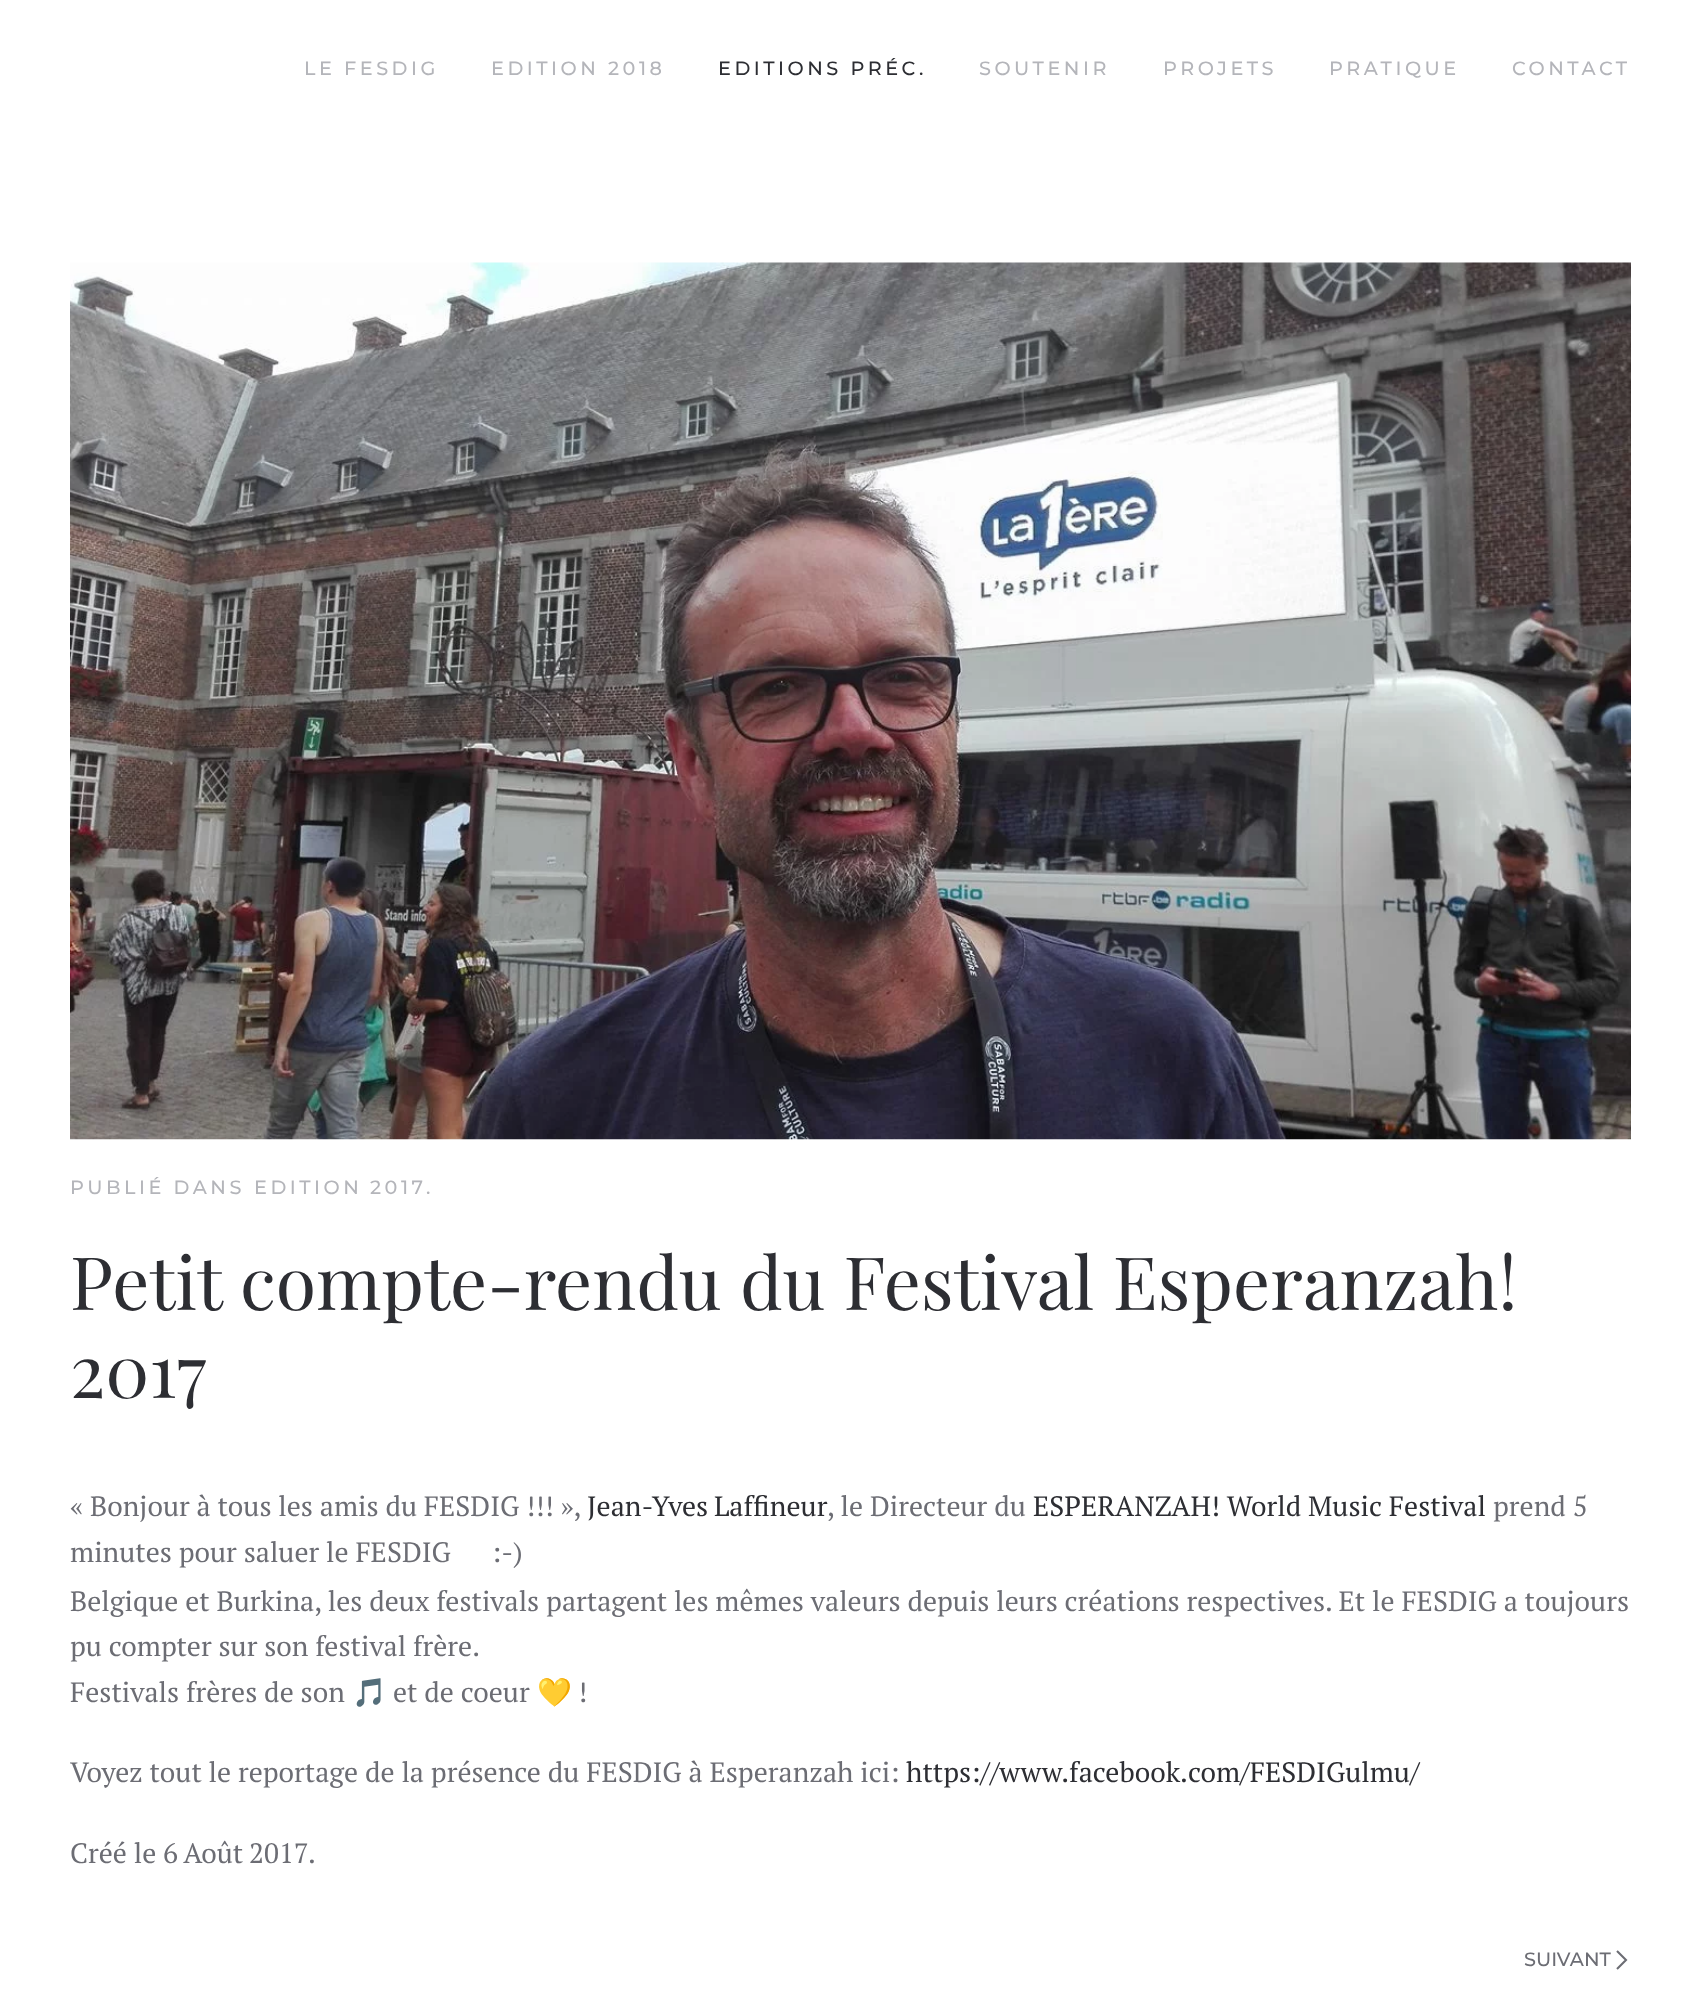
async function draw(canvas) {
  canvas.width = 1700
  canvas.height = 1993
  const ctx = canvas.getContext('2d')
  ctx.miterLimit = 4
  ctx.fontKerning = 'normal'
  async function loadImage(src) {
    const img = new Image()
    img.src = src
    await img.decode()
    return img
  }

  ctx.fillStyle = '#fff'
  ctx.fillRect(0, 0, 1700, 1993)
  ctx.letterSpacing = '3.5px'
  ctx.font = '100 19.25px Montserrat'
  ctx.fillStyle = '#b4b5ba'
  ctx.fillText('LE FESDIG', 304, 75)
  ctx.fillText('EDITION 2018', 491, 75)
  ctx.fillStyle = '#2d2e33'
  ctx.fillText('EDITIONS PRÉC.', 718, 75)
  ctx.fillStyle = '#b4b5ba'
  ctx.fillText('SOUTENIR', 979, 75)
  ctx.fillText('PROJETS', 1163, 75)
  ctx.fillText('PRATIQUE', 1329, 75)
  ctx.fillText('CONTACT', 1512, 75)
  ctx.drawImage(await loadImage('image0.png'), 70, 262, 1561, 878)
  ctx.fillText('PUBLIÉ DANS', 70, 1194)
  ctx.wordSpacing = '-1px'
  ctx.fillText('EDITION 2017', 254, 1194)
  ctx.wordSpacing = '0px'
  ctx.fillText('.', 426, 1194)
  ctx.letterSpacing = '0px'
  ctx.font = '73.5px Playfair Display'
  ctx.fillStyle = '#2d2e33'
  ctx.fillText('Petit compte-rendu du Festival Esperanzah!', 70, 1310)
  ctx.fillText('2017', 70, 1398)
  ctx.font = '28px PT Serif'
  ctx.fillStyle = '#6c6d74'
  ctx.fillText('« Bonjour à tous les amis du FESDIG !!! »,', 70, 1516)
  ctx.wordSpacing = '-1px'
  ctx.fillStyle = '#2d2e33'
  ctx.fillText('Jean-Yves Laffineur', 587, 1516)
  ctx.wordSpacing = '0px'
  ctx.fillStyle = '#6c6d74'
  ctx.fillText(', le Directeur du', 827, 1516)
  ctx.fillStyle = '#2d2e33'
  ctx.fillText('ESPERANZAH! World Music Festival', 1033, 1516)
  ctx.fillStyle = '#6c6d74'
  ctx.fillText('prend 5', 1493, 1516)
  ctx.fillText('minutes pour saluer le FESDIG', 70, 1562)
  ctx.fillText(':-)', 492, 1562)
  ctx.fillText('Belgique et Burkina, les deux festivals partagent les mêmes valeurs depuis leurs créations respectives. Et le FESDIG a toujours', 70, 1611)
  ctx.fillText('pu compter sur son festival frère.', 70, 1656)
  ctx.fillText('Festivals frères de son', 70, 1702)
  ctx.font = '28px Noto Color Emoji'
  ctx.fillText('🎵', 352, 1702)
  ctx.font = '28px PT Serif'
  ctx.fillText('et de coeur', 393, 1702)
  ctx.font = '28px Noto Color Emoji'
  ctx.fillText('💛', 537, 1702)
  ctx.font = '28px PT Serif'
  ctx.fillText('!', 578, 1702)
  ctx.fillText('Voyez tout le reportage de la présence du FESDIG à Esperanzah ici:', 70, 1782)
  ctx.fillStyle = '#2d2e33'
  ctx.fillText('https://www.facebook.com/FESDIGulmu/', 906, 1782)
  ctx.fillStyle = '#6c6d74'
  ctx.fillText('Créé le', 70, 1863)
  ctx.wordSpacing = '-1px'
  ctx.fillText('6 Août 2017', 163, 1863)
  ctx.wordSpacing = '0px'
  ctx.fillText('.', 308, 1863)
  ctx.font = '100 19.25px Montserrat'
  ctx.fillText('SUIVANT', 1524, 1966)
  ctx.beginPath()
  ctx.moveTo(1617, 1951)
  ctx.lineTo(1626, 1960)
  ctx.lineTo(1617, 1969)
  ctx.strokeStyle = '#6c6d74'
  ctx.lineWidth = 2.1
  ctx.stroke()
}

draw(document.querySelector('canvas'))
